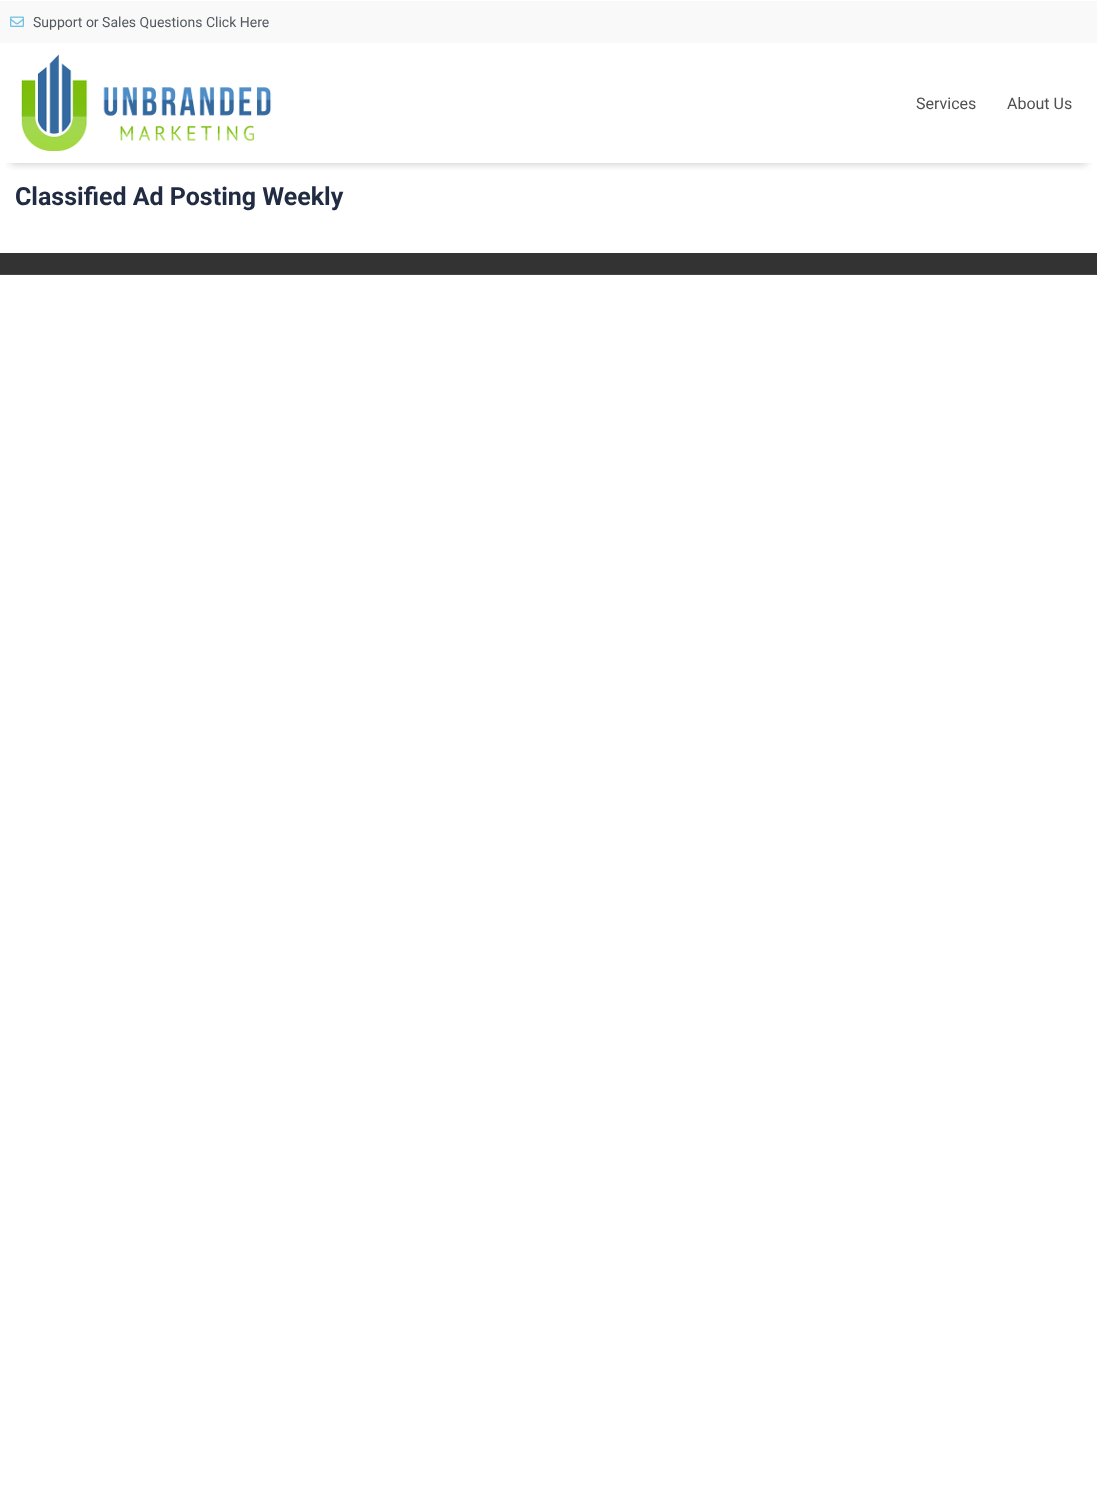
async function draw(canvas) {
  canvas.width = 1097
  canvas.height = 1509
  const ctx = canvas.getContext('2d')
  ctx.miterLimit = 4
  ctx.fontKerning = 'normal'
  async function loadImage(src) {
    const img = new Image()
    img.src = src
    await img.decode()
    return img
  }

  ctx.fillStyle = '#fff'
  ctx.fillRect(0, 0, 1097, 1509)
  ctx.fillStyle = '#f9f9f9'
  ctx.fillRect(0, 1, 1097, 42)
  ctx.drawImage(await loadImage('image0.png'), 10, 16, 14, 11)
  ctx.font = '14px Roboto'
  ctx.fillStyle = '#54595f'
  ctx.fillText('Support or Sales Questions Click Here', 33, 27)
  ctx.save()
  ctx.beginPath()
  ctx.rect(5, 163, 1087, 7)
  ctx.clip()
  ctx.fillStyle = '#00000040'
  ctx.filter = 'blur(5px)'
  ctx.beginPath()
  ctx.rect(10, 63, 1077, 100)
  ctx.fill()
  ctx.filter = 'none'
  ctx.restore()
  ctx.drawImage(await loadImage('image1.png'), 21, 54, 251, 97)
  ctx.font = '16px Roboto'
  ctx.fillStyle = '#505050'
  ctx.fillText('Services', 916, 109)
  ctx.fillText('About Us', 1007, 109)
  ctx.font = 'bold 25px Roboto'
  ctx.fillStyle = '#212b41'
  ctx.fillText('Classified Ad Posting Weekly', 15, 205)
  ctx.fillStyle = '#333'
  ctx.fillRect(0, 253, 1097, 21)
  ctx.fillStyle = '#444'
  ctx.fillRect(0, 274, 1097, 1)
}

draw(document.querySelector('canvas'))
